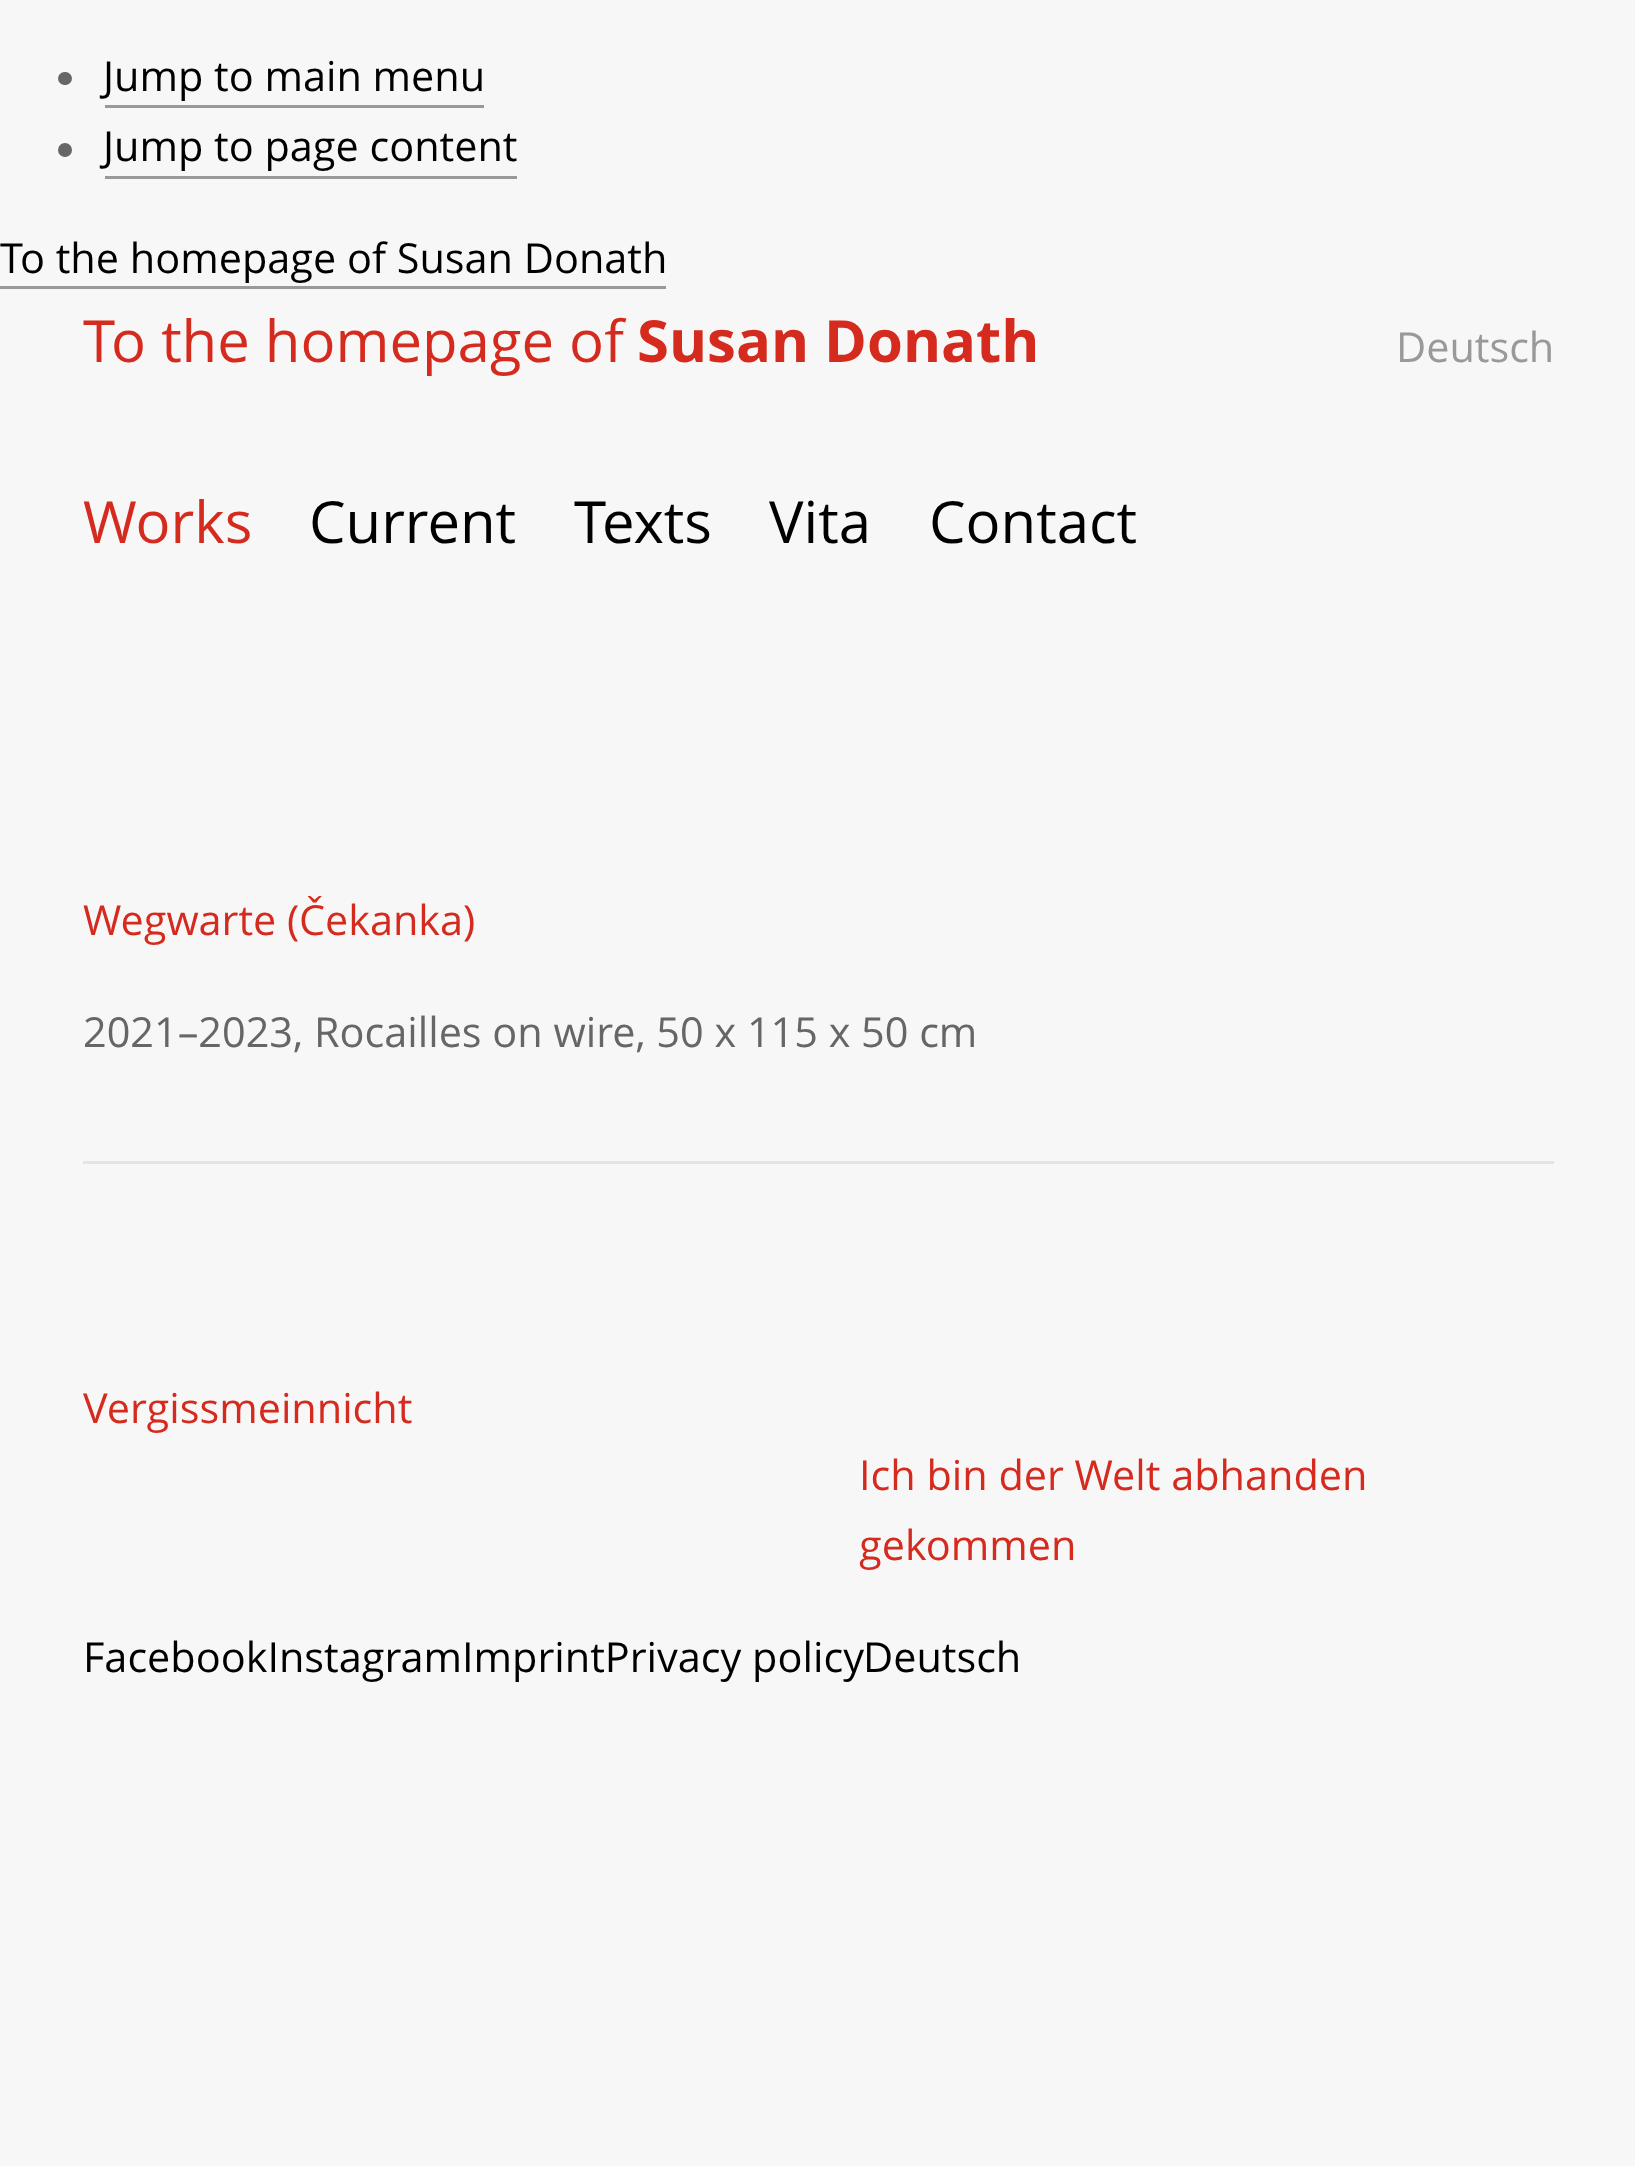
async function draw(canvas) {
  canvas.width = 1635
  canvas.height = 2166
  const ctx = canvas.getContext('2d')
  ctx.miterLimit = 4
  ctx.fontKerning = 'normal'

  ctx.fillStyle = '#f7f7f7'
  ctx.fillRect(0, 0, 1635, 2166)
  ctx.fillStyle = '#666'
  ctx.beginPath()
  ctx.roundRect(58, 72, 14, 13, 6.5)
  ctx.fill()
  ctx.font = '41.4px Open Sans'
  ctx.fillStyle = '#000'
  ctx.fillText('Jump to main menu', 103, 91)
  ctx.fillStyle = '#999'
  ctx.fillRect(105, 105, 379, 3)
  ctx.fillStyle = '#666'
  ctx.beginPath()
  ctx.arc(65, 150, 7, 0, 2 * Math.PI)
  ctx.fill()
  ctx.fillStyle = '#000'
  ctx.fillText('Jump to page content', 103, 161)
  ctx.fillStyle = '#999'
  ctx.fillRect(105, 176, 412, 3)
  ctx.fillStyle = '#000'
  ctx.fillText('To the homepage of Susan Donath', 0, 273)
  ctx.fillStyle = '#999'
  ctx.fillRect(0, 286, 666, 3)
  ctx.font = '58px Open Sans'
  ctx.fillStyle = '#d52b1e'
  ctx.fillText('To the homepage of', 83, 362)
  ctx.font = 'bold 58px Open Sans'
  ctx.fillText('Susan Donath', 637, 362)
  ctx.font = '41.4px Open Sans'
  ctx.fillStyle = '#999'
  ctx.fillText('Deutsch', 1396, 362)
  ctx.font = '58px Open Sans'
  ctx.fillStyle = '#d52b1e'
  ctx.fillText('Works', 83, 543)
  ctx.fillStyle = '#000'
  ctx.fillText('Current', 309, 543)
  ctx.fillText('Texts', 574, 543)
  ctx.fillText('Vita', 769, 543)
  ctx.fillText('Contact', 929, 543)
  ctx.font = '41.4px Open Sans'
  ctx.fillStyle = '#d52b1e'
  ctx.fillText('Wegwarte (', 83, 935)
  ctx.font = '41.4px "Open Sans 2"'
  ctx.fillText('Č', 299, 935)
  ctx.font = '41.4px Open Sans'
  ctx.fillText('ekanka)', 325, 935)
  ctx.fillStyle = '#666'
  ctx.fillText('2021–2023, Rocailles on wire, 50 x 115 x 50 cm', 83, 1047)
  ctx.fillStyle = '#e4e4e4'
  ctx.fillRect(83, 1161, 1471, 3)
  ctx.fillStyle = '#d52b1e'
  ctx.fillText('Vergissmeinnicht', 83, 1423)
  ctx.fillText('Ich bin der Welt abhanden', 859, 1490)
  ctx.fillText('gekommen', 859, 1560)
  ctx.fillStyle = '#000'
  ctx.fillText('FacebookInstagramImprintPrivacy policy', 83, 1672)
  ctx.fillText('Deutsch', 863, 1672)
}

draw(document.querySelector('canvas'))
